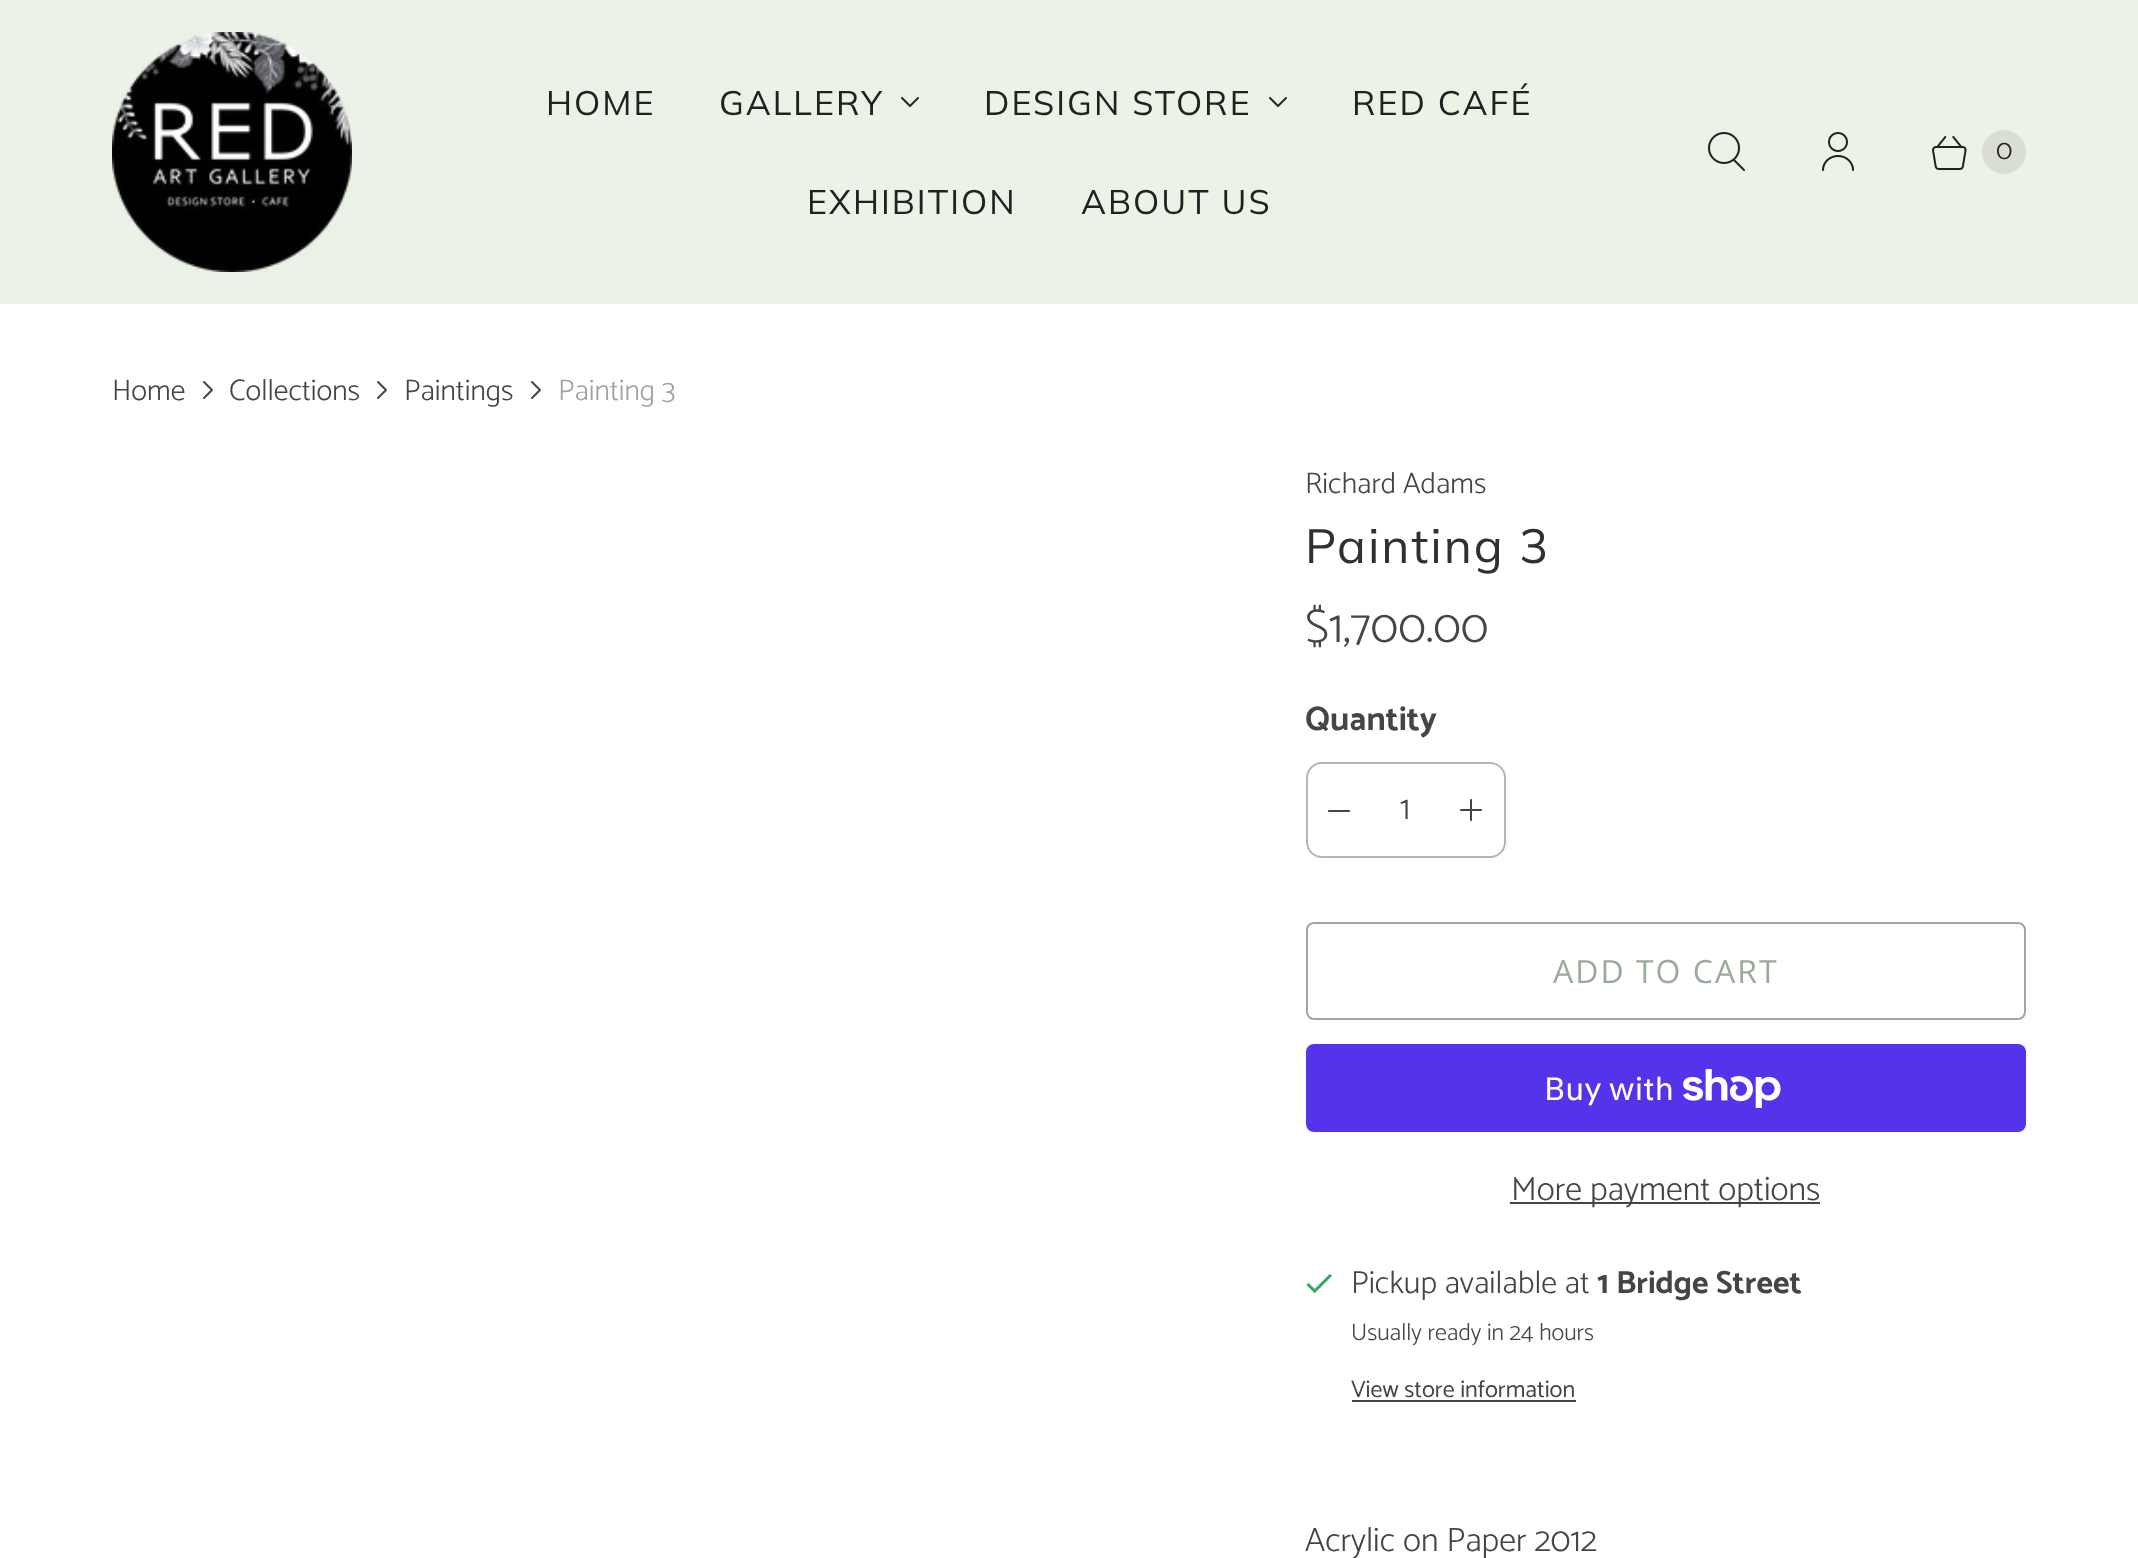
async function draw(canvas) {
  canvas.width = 2138
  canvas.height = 1558
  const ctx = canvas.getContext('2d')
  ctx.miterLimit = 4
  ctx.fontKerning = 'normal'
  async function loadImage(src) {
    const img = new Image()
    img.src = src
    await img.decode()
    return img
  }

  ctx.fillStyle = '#fff'
  ctx.fillRect(0, 0, 2138, 1558)
  ctx.fillStyle = '#edf2e6'
  ctx.fillRect(0, 0, 2138, 304)
  ctx.drawImage(await loadImage('image0.png'), 112, 32, 240, 240)
  ctx.letterSpacing = '2px'
  ctx.font = '34px Muli'
  ctx.fillStyle = '#212121'
  ctx.fillText('HOME', 546, 115)
  ctx.fillText('GALLERY', 719, 115)
  ctx.drawImage(await loadImage('image1.png'), 901, 97, 18, 10)
  ctx.fillText('DESIGN STORE', 984, 115)
  ctx.drawImage(await loadImage('image1.png'), 1269, 97, 18, 10)
  ctx.fillText('RED CAFÉ', 1352, 115)
  ctx.fillText('EXHIBITION', 807, 214)
  ctx.fillText('ABOUT US', 1081, 214)
  ctx.drawImage(await loadImage('image2.png'), 1708, 132, 37, 39)
  ctx.drawImage(await loadImage('image3.png'), 1822, 132, 32, 39)
  ctx.drawImage(await loadImage('image4.png'), 1932, 136, 35, 34)
  ctx.fillStyle = '#d9ddd2'
  ctx.beginPath()
  ctx.arc(2004, 152, 22, 0, 2 * Math.PI)
  ctx.fill()
  ctx.letterSpacing = '0px'
  ctx.font = '300 28px Catamaran'
  ctx.fillStyle = '#212121'
  ctx.fillText('0', 1996, 159)
  ctx.font = '300 29.75px Catamaran'
  ctx.fillStyle = '#454545'
  ctx.fillText('Home', 112, 400)
  ctx.drawImage(await loadImage('image5.png'), 203, 381, 10, 18)
  ctx.fillText('Collections', 229, 400)
  ctx.drawImage(await loadImage('image5.png'), 377, 381, 10, 18)
  ctx.fillText('Paintings', 404, 400)
  ctx.drawImage(await loadImage('image5.png'), 531, 381, 10, 18)
  ctx.fillStyle = '#a2a2a2'
  ctx.fillText('Painting 3', 558, 400)
  ctx.fillStyle = '#454545'
  ctx.fillText('Richard Adams', 1305, 493)
  ctx.letterSpacing = '2px'
  ctx.font = '48px Muli'
  ctx.fillStyle = '#303030'
  ctx.fillText('Painting 3', 1305, 563)
  ctx.letterSpacing = '0px'
  ctx.font = '300 47px Catamaran'
  ctx.fillStyle = '#454545'
  ctx.fillText('$1,700.00', 1305, 642)
  ctx.font = 'bold 34px Catamaran'
  ctx.fillText('Quantity', 1305, 730)
  ctx.beginPath()
  ctx.roundRect(1307, 763, 198, 94, 15)
  ctx.strokeStyle = '#b5b5b5'
  ctx.lineWidth = 2
  ctx.stroke()
  ctx.drawImage(await loadImage('image6.png'), 1328, 810, 22, 2)
  ctx.font = '300 34px Catamaran'
  ctx.fillText('1', 1400, 819)
  ctx.drawImage(await loadImage('image7.png'), 1460, 799, 22, 22)
  ctx.beginPath()
  ctx.roundRect(1307, 923, 718, 96, 7)
  ctx.strokeStyle = '#9aab99'
  ctx.stroke()
  ctx.letterSpacing = '2px'
  ctx.font = '32px Open Sans'
  ctx.fillStyle = '#9aab99'
  ctx.fillText('ADD TO CART', 1553, 983)
  ctx.fillStyle = '#5433eb'
  ctx.beginPath()
  ctx.roundRect(1306, 1044, 720, 88, 8)
  ctx.fill()
  ctx.letterSpacing = '0px'
  ctx.font = '32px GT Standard'
  ctx.fillStyle = '#fff'
  ctx.fillText('Buy with', 1544, 1100)
  ctx.drawImage(await loadImage('image8.png'), 1683, 1069, 98, 39)
  ctx.fillStyle = '#454545'
  ctx.fillRect(1510, 1202, 310, 2)
  ctx.font = '300 34px Catamaran'
  ctx.fillText('More payment options', 1511, 1200)
  ctx.drawImage(await loadImage('image9.png'), 1306, 1273, 26, 21)
  ctx.font = '300 32px Catamaran'
  ctx.fillText('Pickup available at', 1351, 1293)
  ctx.font = 'bold 32px Catamaran'
  ctx.fillText('1 Bridge Street', 1597, 1293)
  ctx.font = '300 24px Catamaran'
  ctx.fillText('Usually ready in 24 hours', 1351, 1340)
  ctx.font = '24px Catamaran'
  ctx.fillText('View store information', 1351, 1397)
  ctx.fillRect(1352, 1400, 224, 2)
  ctx.font = '300 34px Catamaran'
  ctx.fillText('Acrylic on Paper 2012', 1305, 1551)
}

draw(document.querySelector('canvas'))
